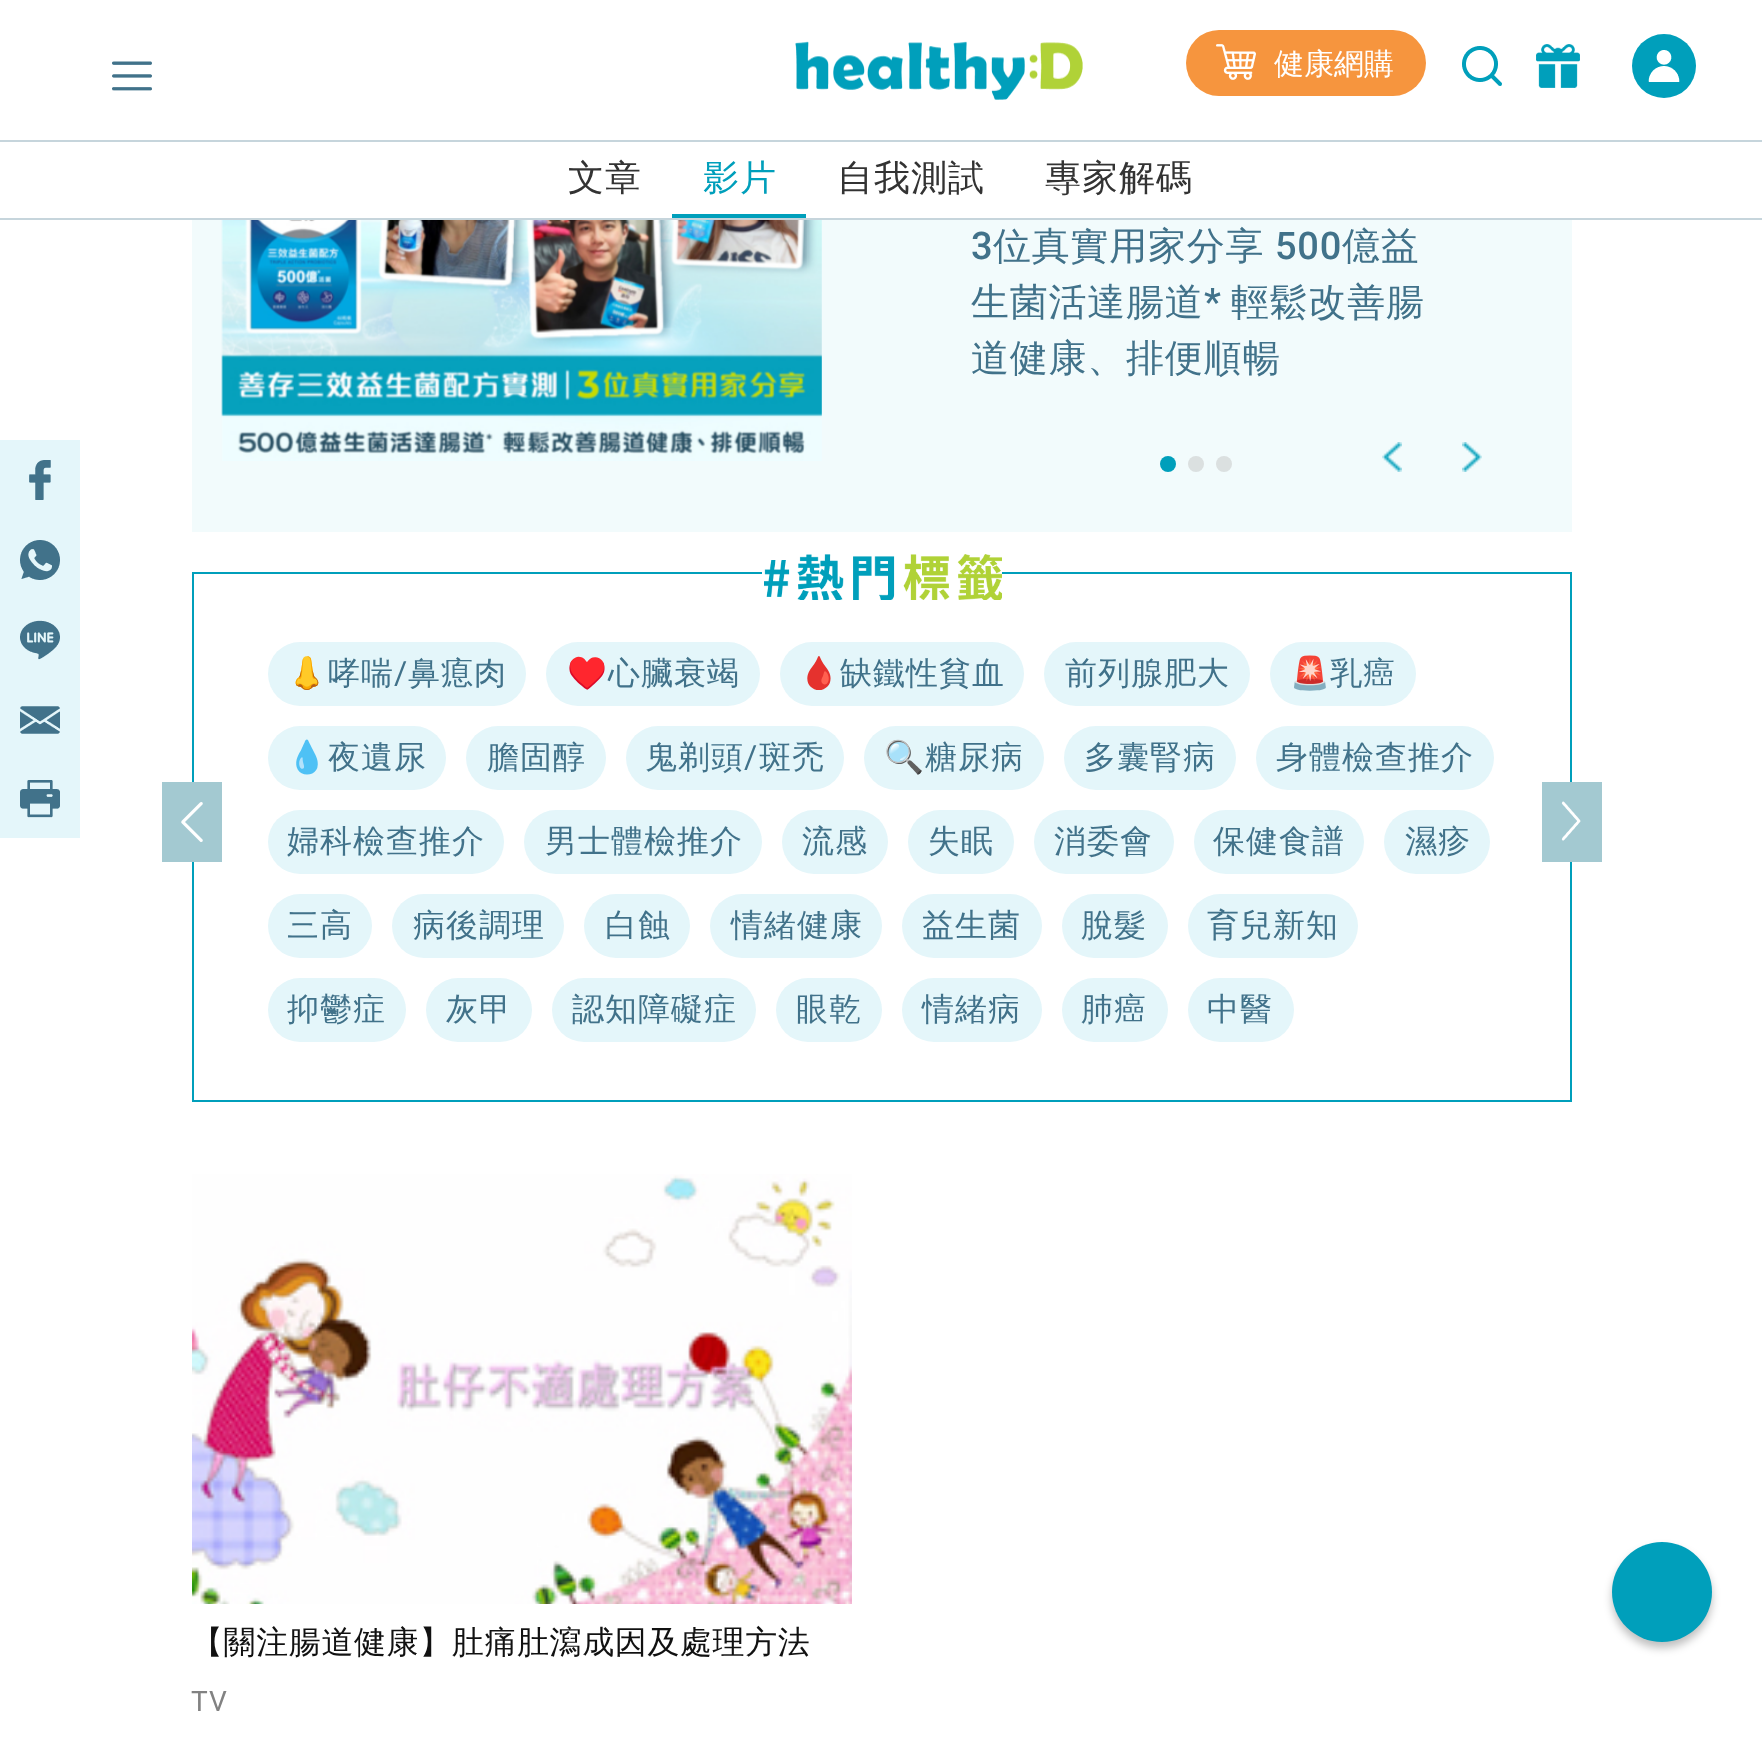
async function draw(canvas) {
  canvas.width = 1762
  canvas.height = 1742
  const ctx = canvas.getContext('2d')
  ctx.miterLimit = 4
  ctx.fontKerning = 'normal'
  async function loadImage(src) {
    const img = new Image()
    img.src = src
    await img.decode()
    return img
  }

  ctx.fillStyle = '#fff'
  ctx.fillRect(0, 0, 1762, 1742)
  ctx.fillStyle = '#c6d5dc'
  ctx.fillRect(0, 140, 1762, 2)
  ctx.drawImage(await loadImage('image0.png'), 112, 61, 40, 30)
  ctx.drawImage(await loadImage('image1.png'), 795, 41, 288, 59)
  ctx.fillStyle = '#f6953e'
  ctx.beginPath()
  ctx.roundRect(1186, 30, 240, 66, 33)
  ctx.fill()
  ctx.drawImage(await loadImage('image2.png'), 1216, 44, 40, 36)
  ctx.font = '500 30px WenQuanYi Zen Hei'
  ctx.fillStyle = '#fff'
  ctx.fillText('健康網購', 1274, 74)
  ctx.drawImage(await loadImage('image3.png'), 1462, 46, 40, 40)
  ctx.drawImage(await loadImage('image4.png'), 1536, 44, 44, 44)
  ctx.fillStyle = '#009fbb'
  ctx.beginPath()
  ctx.arc(1664, 66, 32, 0, 2 * Math.PI)
  ctx.fill()
  ctx.drawImage(await loadImage('image5.png'), 1648, 50, 32, 32)
  ctx.fillStyle = '#e4f6fa'
  ctx.fillRect(0, 440, 80, 398)
  ctx.drawImage(await loadImage('image6.png'), 29, 460, 22, 40)
  ctx.drawImage(await loadImage('image7.png'), 20, 540, 40, 40)
  ctx.drawImage(await loadImage('image8.png'), 20, 620, 40, 40)
  ctx.drawImage(await loadImage('image9.png'), 20, 706, 40, 28)
  ctx.drawImage(await loadImage('image10.png'), 20, 780, 40, 38)
  ctx.fillStyle = '#c6d5dc'
  ctx.fillRect(0, 218, 1762, 2)
  ctx.letterSpacing = '1px'
  ctx.font = '500 36px WenQuanYi Zen Hei'
  ctx.fillStyle = '#333'
  ctx.fillText('文章', 568, 190)
  ctx.fillStyle = '#009fbb'
  ctx.fillRect(672, 214, 134, 4)
  ctx.fillText('影片', 703, 190)
  ctx.fillStyle = '#333'
  ctx.fillText('自我測試', 837, 190)
  ctx.fillText('專家解碼', 1045, 190)
  ctx.fillStyle = '#f2fbfc'
  ctx.fillRect(192, 220, 1380, 312)
  ctx.drawImage(await loadImage('image11.png'), 221, 220, 601, 241)
  ctx.letterSpacing = '0.75px'
  ctx.font = '500 38px Roboto'
  ctx.fillStyle = '#41728a'
  ctx.fillText('3', 971, 259)
  ctx.font = '500 38px WenQuanYi Zen Hei'
  ctx.fillText('位真實用家分享', 993, 259)
  ctx.font = '500 38px Roboto'
  ctx.fillText('500', 1275, 259)
  ctx.font = '500 38px WenQuanYi Zen Hei'
  ctx.fillText('億益', 1342, 259)
  ctx.fillText('生菌活達腸道', 971, 315)
  ctx.font = '500 38px Roboto'
  ctx.fillText('*', 1204, 315)
  ctx.font = '500 38px WenQuanYi Zen Hei'
  ctx.fillText('輕鬆改善腸', 1231, 315)
  ctx.fillText('道健康、排便順暢', 971, 371)
  ctx.fillStyle = '#009fbb'
  ctx.beginPath()
  ctx.arc(1168, 464, 8, 0, 2 * Math.PI)
  ctx.fill()
  ctx.fillStyle = '#dbe0e0'
  ctx.beginPath()
  ctx.arc(1196, 464, 8, 0, 2 * Math.PI)
  ctx.fill()
  ctx.beginPath()
  ctx.arc(1224, 464, 8, 0, 2 * Math.PI)
  ctx.fill()
  ctx.drawImage(await loadImage('image12.png'), 1382, 442, 20, 30)
  ctx.drawImage(await loadImage('image13.png'), 1462, 442, 20, 30)
  ctx.strokeStyle = '#009fbb'
  ctx.lineWidth = 2
  ctx.strokeRect(193, 573, 1378, 528)
  ctx.drawImage(await loadImage('image14.png'), 762, 552, 240, 48)
  ctx.drawImage(await loadImage('image15.png'), 162, 782, 60, 80)
  ctx.fillStyle = '#e4f6fa'
  ctx.beginPath()
  ctx.roundRect(268, 642, 258, 64, 32)
  ctx.fill()
  ctx.letterSpacing = '1px'
  ctx.font = '32px Noto Color Emoji'
  ctx.fillStyle = '#41728a'
  ctx.fillText('👃', 287, 684)
  ctx.font = '500 32px WenQuanYi Zen Hei'
  ctx.fillText('哮喘', 328, 684)
  ctx.font = '32px Roboto'
  ctx.fillText('/', 394, 684)
  ctx.font = '500 32px WenQuanYi Zen Hei'
  ctx.fillText('鼻瘜肉', 408, 684)
  ctx.fillStyle = '#e4f6fa'
  ctx.beginPath()
  ctx.roundRect(546, 642, 214, 64, 32)
  ctx.fill()
  ctx.font = '32px Noto Color Emoji'
  ctx.fillStyle = '#41728a'
  ctx.fillText('♥️', 567, 684)
  ctx.font = '500 32px WenQuanYi Zen Hei'
  ctx.fillText('心臟衰竭', 608, 684)
  ctx.fillStyle = '#e4f6fa'
  ctx.beginPath()
  ctx.roundRect(780, 642, 244, 64, 32)
  ctx.fill()
  ctx.font = '32px Noto Color Emoji'
  ctx.fillStyle = '#41728a'
  ctx.fillText('🩸', 799, 684)
  ctx.font = '500 32px WenQuanYi Zen Hei'
  ctx.fillText('缺鐵性貧血', 840, 684)
  ctx.fillStyle = '#e4f6fa'
  ctx.beginPath()
  ctx.roundRect(1044, 642, 206, 64, 32)
  ctx.fill()
  ctx.fillStyle = '#41728a'
  ctx.fillText('前列腺肥大', 1065, 684)
  ctx.fillStyle = '#e4f6fa'
  ctx.beginPath()
  ctx.roundRect(1270, 642, 146, 64, 32)
  ctx.fill()
  ctx.font = '32px Noto Color Emoji'
  ctx.fillStyle = '#41728a'
  ctx.fillText('🚨', 1290, 684)
  ctx.font = '500 32px WenQuanYi Zen Hei'
  ctx.fillText('乳癌', 1330, 684)
  ctx.fillStyle = '#e4f6fa'
  ctx.beginPath()
  ctx.roundRect(268, 726, 178, 64, 32)
  ctx.fill()
  ctx.font = '32px Noto Color Emoji'
  ctx.fillStyle = '#41728a'
  ctx.fillText('💧', 287, 768)
  ctx.font = '500 32px WenQuanYi Zen Hei'
  ctx.fillText('夜遺尿', 328, 768)
  ctx.fillStyle = '#e4f6fa'
  ctx.beginPath()
  ctx.roundRect(466, 726, 140, 64, 32)
  ctx.fill()
  ctx.fillStyle = '#41728a'
  ctx.fillText('膽固醇', 487, 768)
  ctx.fillStyle = '#e4f6fa'
  ctx.beginPath()
  ctx.roundRect(626, 726, 218, 64, 32)
  ctx.fill()
  ctx.fillStyle = '#41728a'
  ctx.fillText('鬼剃頭', 645, 768)
  ctx.font = '32px Roboto'
  ctx.fillText('/', 744, 768)
  ctx.font = '500 32px WenQuanYi Zen Hei'
  ctx.fillText('斑禿', 759, 768)
  ctx.fillStyle = '#e4f6fa'
  ctx.beginPath()
  ctx.roundRect(864, 726, 180, 64, 32)
  ctx.fill()
  ctx.font = '32px Noto Color Emoji'
  ctx.fillStyle = '#41728a'
  ctx.fillText('🔍', 884, 768)
  ctx.font = '500 32px WenQuanYi Zen Hei'
  ctx.fillText('糖尿病', 925, 768)
  ctx.fillStyle = '#e4f6fa'
  ctx.beginPath()
  ctx.roundRect(1064, 726, 172, 64, 32)
  ctx.fill()
  ctx.fillStyle = '#41728a'
  ctx.fillText('多囊腎病', 1084, 768)
  ctx.fillStyle = '#e4f6fa'
  ctx.beginPath()
  ctx.roundRect(1256, 726, 238, 64, 32)
  ctx.fill()
  ctx.fillStyle = '#41728a'
  ctx.fillText('身體檢查推介', 1276, 768)
  ctx.fillStyle = '#e4f6fa'
  ctx.beginPath()
  ctx.roundRect(268, 810, 236, 64, 32)
  ctx.fill()
  ctx.fillStyle = '#41728a'
  ctx.fillText('婦科檢查推介', 287, 852)
  ctx.fillStyle = '#e4f6fa'
  ctx.beginPath()
  ctx.roundRect(524, 810, 238, 64, 32)
  ctx.fill()
  ctx.fillStyle = '#41728a'
  ctx.fillText('男士體檢推介', 545, 852)
  ctx.fillStyle = '#e4f6fa'
  ctx.beginPath()
  ctx.roundRect(782, 810, 106, 64, 32)
  ctx.fill()
  ctx.fillStyle = '#41728a'
  ctx.fillText('流感', 802, 852)
  ctx.fillStyle = '#e4f6fa'
  ctx.beginPath()
  ctx.roundRect(908, 810, 106, 64, 32)
  ctx.fill()
  ctx.fillStyle = '#41728a'
  ctx.fillText('失眠', 928, 852)
  ctx.fillStyle = '#e4f6fa'
  ctx.beginPath()
  ctx.roundRect(1034, 810, 140, 64, 32)
  ctx.fill()
  ctx.fillStyle = '#41728a'
  ctx.fillText('消委會', 1054, 852)
  ctx.fillStyle = '#e4f6fa'
  ctx.beginPath()
  ctx.roundRect(1194, 810, 170, 64, 32)
  ctx.fill()
  ctx.fillStyle = '#41728a'
  ctx.fillText('保健食譜', 1213, 852)
  ctx.fillStyle = '#e4f6fa'
  ctx.beginPath()
  ctx.roundRect(1384, 810, 106, 64, 32)
  ctx.fill()
  ctx.fillStyle = '#41728a'
  ctx.fillText('濕疹', 1405, 852)
  ctx.fillStyle = '#e4f6fa'
  ctx.beginPath()
  ctx.roundRect(268, 894, 104, 64, 32)
  ctx.fill()
  ctx.fillStyle = '#41728a'
  ctx.fillText('三高', 287, 936)
  ctx.fillStyle = '#e4f6fa'
  ctx.beginPath()
  ctx.roundRect(392, 894, 172, 64, 32)
  ctx.fill()
  ctx.fillStyle = '#41728a'
  ctx.fillText('病後調理', 413, 936)
  ctx.fillStyle = '#e4f6fa'
  ctx.beginPath()
  ctx.roundRect(584, 894, 106, 64, 32)
  ctx.fill()
  ctx.fillStyle = '#41728a'
  ctx.fillText('白蝕', 605, 936)
  ctx.fillStyle = '#e4f6fa'
  ctx.beginPath()
  ctx.roundRect(710, 894, 172, 64, 32)
  ctx.fill()
  ctx.fillStyle = '#41728a'
  ctx.fillText('情緒健康', 731, 936)
  ctx.fillStyle = '#e4f6fa'
  ctx.beginPath()
  ctx.roundRect(902, 894, 140, 64, 32)
  ctx.fill()
  ctx.fillStyle = '#41728a'
  ctx.fillText('益生菌', 922, 936)
  ctx.fillStyle = '#e4f6fa'
  ctx.beginPath()
  ctx.roundRect(1062, 894, 106, 64, 32)
  ctx.fill()
  ctx.fillStyle = '#41728a'
  ctx.fillText('脫髮', 1081, 936)
  ctx.fillStyle = '#e4f6fa'
  ctx.beginPath()
  ctx.roundRect(1188, 894, 170, 64, 32)
  ctx.fill()
  ctx.fillStyle = '#41728a'
  ctx.fillText('育兒新知', 1207, 936)
  ctx.fillStyle = '#e4f6fa'
  ctx.beginPath()
  ctx.roundRect(268, 978, 138, 64, 32)
  ctx.fill()
  ctx.fillStyle = '#41728a'
  ctx.fillText('抑鬱症', 287, 1020)
  ctx.fillStyle = '#e4f6fa'
  ctx.beginPath()
  ctx.roundRect(426, 978, 106, 64, 32)
  ctx.fill()
  ctx.fillStyle = '#41728a'
  ctx.fillText('灰甲', 446, 1020)
  ctx.fillStyle = '#e4f6fa'
  ctx.beginPath()
  ctx.roundRect(552, 978, 204, 64, 32)
  ctx.fill()
  ctx.fillStyle = '#41728a'
  ctx.fillText('認知障礙症', 572, 1020)
  ctx.fillStyle = '#e4f6fa'
  ctx.beginPath()
  ctx.roundRect(776, 978, 106, 64, 32)
  ctx.fill()
  ctx.fillStyle = '#41728a'
  ctx.fillText('眼乾', 796, 1020)
  ctx.fillStyle = '#e4f6fa'
  ctx.beginPath()
  ctx.roundRect(902, 978, 140, 64, 32)
  ctx.fill()
  ctx.fillStyle = '#41728a'
  ctx.fillText('情緒病', 922, 1020)
  ctx.fillStyle = '#e4f6fa'
  ctx.beginPath()
  ctx.roundRect(1062, 978, 106, 64, 32)
  ctx.fill()
  ctx.fillStyle = '#41728a'
  ctx.fillText('肺癌', 1081, 1020)
  ctx.fillStyle = '#e4f6fa'
  ctx.beginPath()
  ctx.roundRect(1188, 978, 106, 64, 32)
  ctx.fill()
  ctx.fillStyle = '#41728a'
  ctx.fillText('中醫', 1207, 1020)
  ctx.drawImage(await loadImage('image16.png'), 1542, 782, 60, 80)
  ctx.drawImage(await loadImage('image17.png'), 192, 1174, 660, 430)
  ctx.letterSpacing = '0.6px'
  ctx.fillStyle = '#111'
  ctx.fillText('【關注腸道健康】肚痛肚瀉成因及處理方法', 191, 1653)
  ctx.letterSpacing = '1px'
  ctx.font = '28px Roboto'
  ctx.fillStyle = '#828282'
  ctx.fillText('TV', 191, 1711)
  ctx.fillStyle = '#00000040'
  ctx.filter = 'blur(4px)'
  ctx.beginPath()
  ctx.roundRect(1612, 1548, 100, 100, 50)
  ctx.fill()
  ctx.filter = 'none'
  ctx.fillStyle = '#009fbb'
  ctx.beginPath()
  ctx.arc(1662, 1592, 50, 0, 2 * Math.PI)
  ctx.fill()
}

draw(document.querySelector('canvas'))
